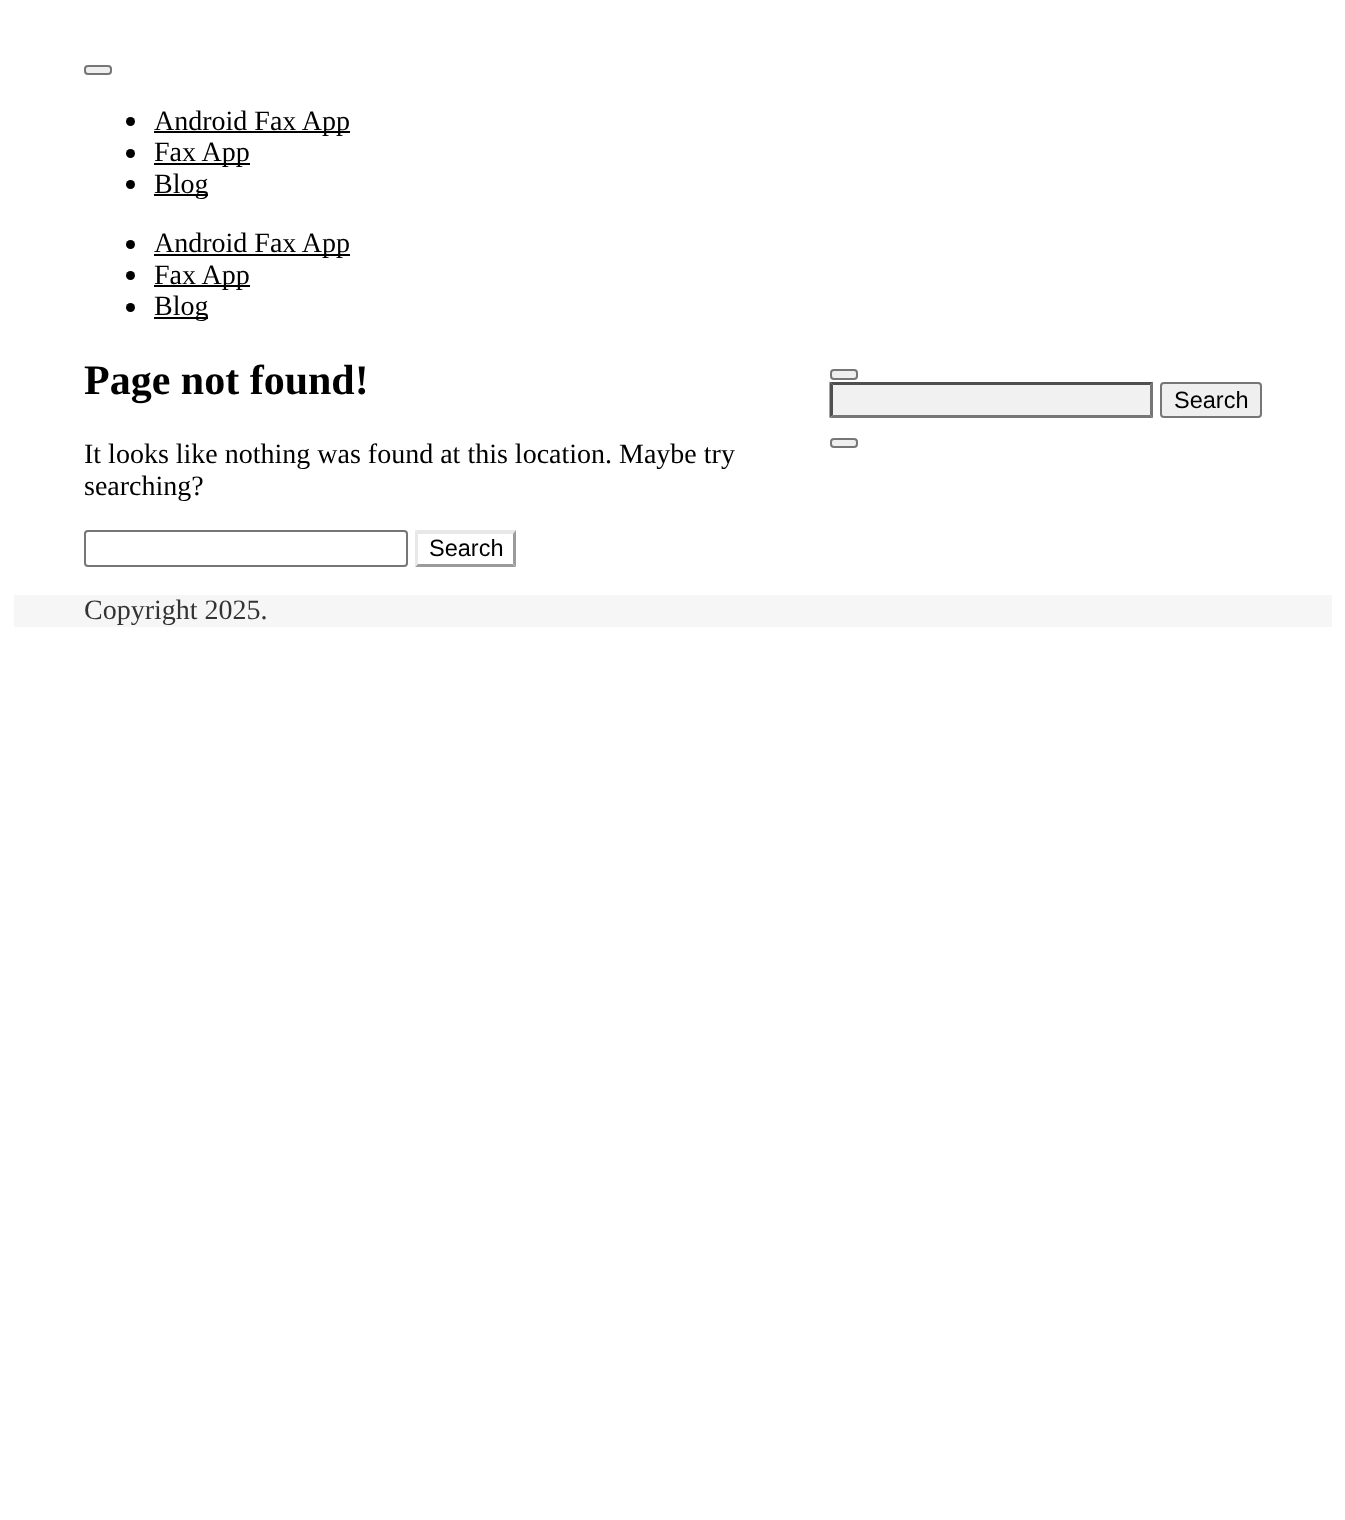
async function draw(canvas) {
  canvas.width = 1345
  canvas.height = 1520
  const ctx = canvas.getContext('2d')
  ctx.miterLimit = 4
  ctx.fontKerning = 'normal'

  ctx.fillStyle = '#fff'
  ctx.fillRect(0, 0, 1345, 1520)
  ctx.fillStyle = '#efefef'
  ctx.beginPath()
  ctx.roundRect(85, 66, 26, 8, 3)
  ctx.fill()
  ctx.strokeStyle = '#767676'
  ctx.lineWidth = 2
  ctx.stroke()
  ctx.fillStyle = '#000'
  ctx.beginPath()
  ctx.arc(130.5, 121.5, 4.5, 0, 2 * Math.PI)
  ctx.fill()
  ctx.fillRect(154, 131, 196, 2)
  ctx.font = '28px Liberation Serif'
  ctx.fillText('Android Fax App', 154, 130)
  ctx.beginPath()
  ctx.arc(130.5, 153.5, 4.5, 0, 2 * Math.PI)
  ctx.fill()
  ctx.fillRect(154, 163, 96, 2)
  ctx.fillText('Fax App', 154, 161)
  ctx.beginPath()
  ctx.arc(130.5, 184.5, 4.5, 0, 2 * Math.PI)
  ctx.fill()
  ctx.fillRect(154, 194, 54, 2)
  ctx.fillText('Blog', 154, 193)
  ctx.beginPath()
  ctx.arc(130.5, 244.5, 4.5, 0, 2 * Math.PI)
  ctx.fill()
  ctx.fillRect(154, 254, 196, 2)
  ctx.fillText('Android Fax App', 154, 252)
  ctx.beginPath()
  ctx.arc(130.5, 275.5, 4.5, 0, 2 * Math.PI)
  ctx.fill()
  ctx.fillRect(154, 285, 96, 2)
  ctx.fillText('Fax App', 154, 284)
  ctx.beginPath()
  ctx.arc(130.5, 307.5, 4.5, 0, 2 * Math.PI)
  ctx.fill()
  ctx.fillRect(154, 317, 54, 2)
  ctx.fillText('Blog', 154, 315)
  ctx.fillStyle = '#efefef'
  ctx.beginPath()
  ctx.roundRect(831, 370, 26, 9, 3)
  ctx.fill()
  ctx.stroke()
  ctx.fillStyle = '#f1f1f1'
  ctx.fillRect(830, 382, 323, 36)
  ctx.fillStyle = '#4f4f4f'
  ctx.beginPath()
  ctx.moveTo(830, 382)
  ctx.lineTo(1153, 382)
  ctx.lineTo(1150, 385)
  ctx.lineTo(833, 385)
  ctx.closePath()
  ctx.fill()
  ctx.fillStyle = '#767676'
  ctx.beginPath()
  ctx.moveTo(1153, 381.5)
  ctx.lineTo(1153, 418)
  ctx.lineTo(1150, 415)
  ctx.lineTo(1150, 385)
  ctx.closePath()
  ctx.fill()
  ctx.beginPath()
  ctx.moveTo(1153, 418)
  ctx.lineTo(830, 418)
  ctx.lineTo(833, 415)
  ctx.lineTo(1150, 415)
  ctx.closePath()
  ctx.fill()
  ctx.fillStyle = '#4f4f4f'
  ctx.beginPath()
  ctx.moveTo(829.5, 418)
  ctx.lineTo(829.5, 381.5)
  ctx.lineTo(833, 385)
  ctx.lineTo(833, 415)
  ctx.closePath()
  ctx.fill()
  ctx.fillStyle = '#efefef'
  ctx.beginPath()
  ctx.roundRect(1161, 383, 100, 34, 3)
  ctx.fill()
  ctx.stroke()
  ctx.font = '23.5px Liberation Sans'
  ctx.fillStyle = '#000'
  ctx.fillText('Search', 1174, 408)
  ctx.fillStyle = '#efefef'
  ctx.beginPath()
  ctx.roundRect(831, 439, 26, 8, 3)
  ctx.fill()
  ctx.stroke()
  ctx.font = 'bold 42px Liberation Serif'
  ctx.fillStyle = '#000'
  ctx.fillText('Page not found!', 84, 394)
  ctx.font = '28px Liberation Serif'
  ctx.fillText('It looks like nothing was found at this location. Maybe try', 84, 463)
  ctx.fillText('searching?', 84, 495)
  ctx.beginPath()
  ctx.roundRect(85, 531, 322, 35, 3)
  ctx.stroke()
  ctx.fillStyle = '#e8e8e8'
  ctx.beginPath()
  ctx.moveTo(415, 530)
  ctx.lineTo(516, 530)
  ctx.lineTo(513, 534)
  ctx.lineTo(418, 534)
  ctx.closePath()
  ctx.fill()
  ctx.fillStyle = '#9b9b9b'
  ctx.beginPath()
  ctx.moveTo(516, 530)
  ctx.lineTo(516, 567)
  ctx.lineTo(513, 563.5)
  ctx.lineTo(513, 534)
  ctx.closePath()
  ctx.fill()
  ctx.beginPath()
  ctx.moveTo(516, 567)
  ctx.lineTo(415, 567)
  ctx.lineTo(418, 564)
  ctx.lineTo(513, 564)
  ctx.closePath()
  ctx.fill()
  ctx.fillStyle = '#e8e8e8'
  ctx.beginPath()
  ctx.moveTo(415, 567)
  ctx.lineTo(415, 530)
  ctx.lineTo(418, 534)
  ctx.lineTo(418, 563.5)
  ctx.closePath()
  ctx.fill()
  ctx.font = '23.5px Liberation Sans'
  ctx.fillStyle = '#000'
  ctx.fillText('Search', 429, 556)
  ctx.fillStyle = '#f6f6f6'
  ctx.fillRect(14, 595, 1318, 32)
  ctx.font = '28px Liberation Serif'
  ctx.fillStyle = '#333'
  ctx.fillText('Copyright 2025.', 84, 619)
}

draw(document.querySelector('canvas'))
